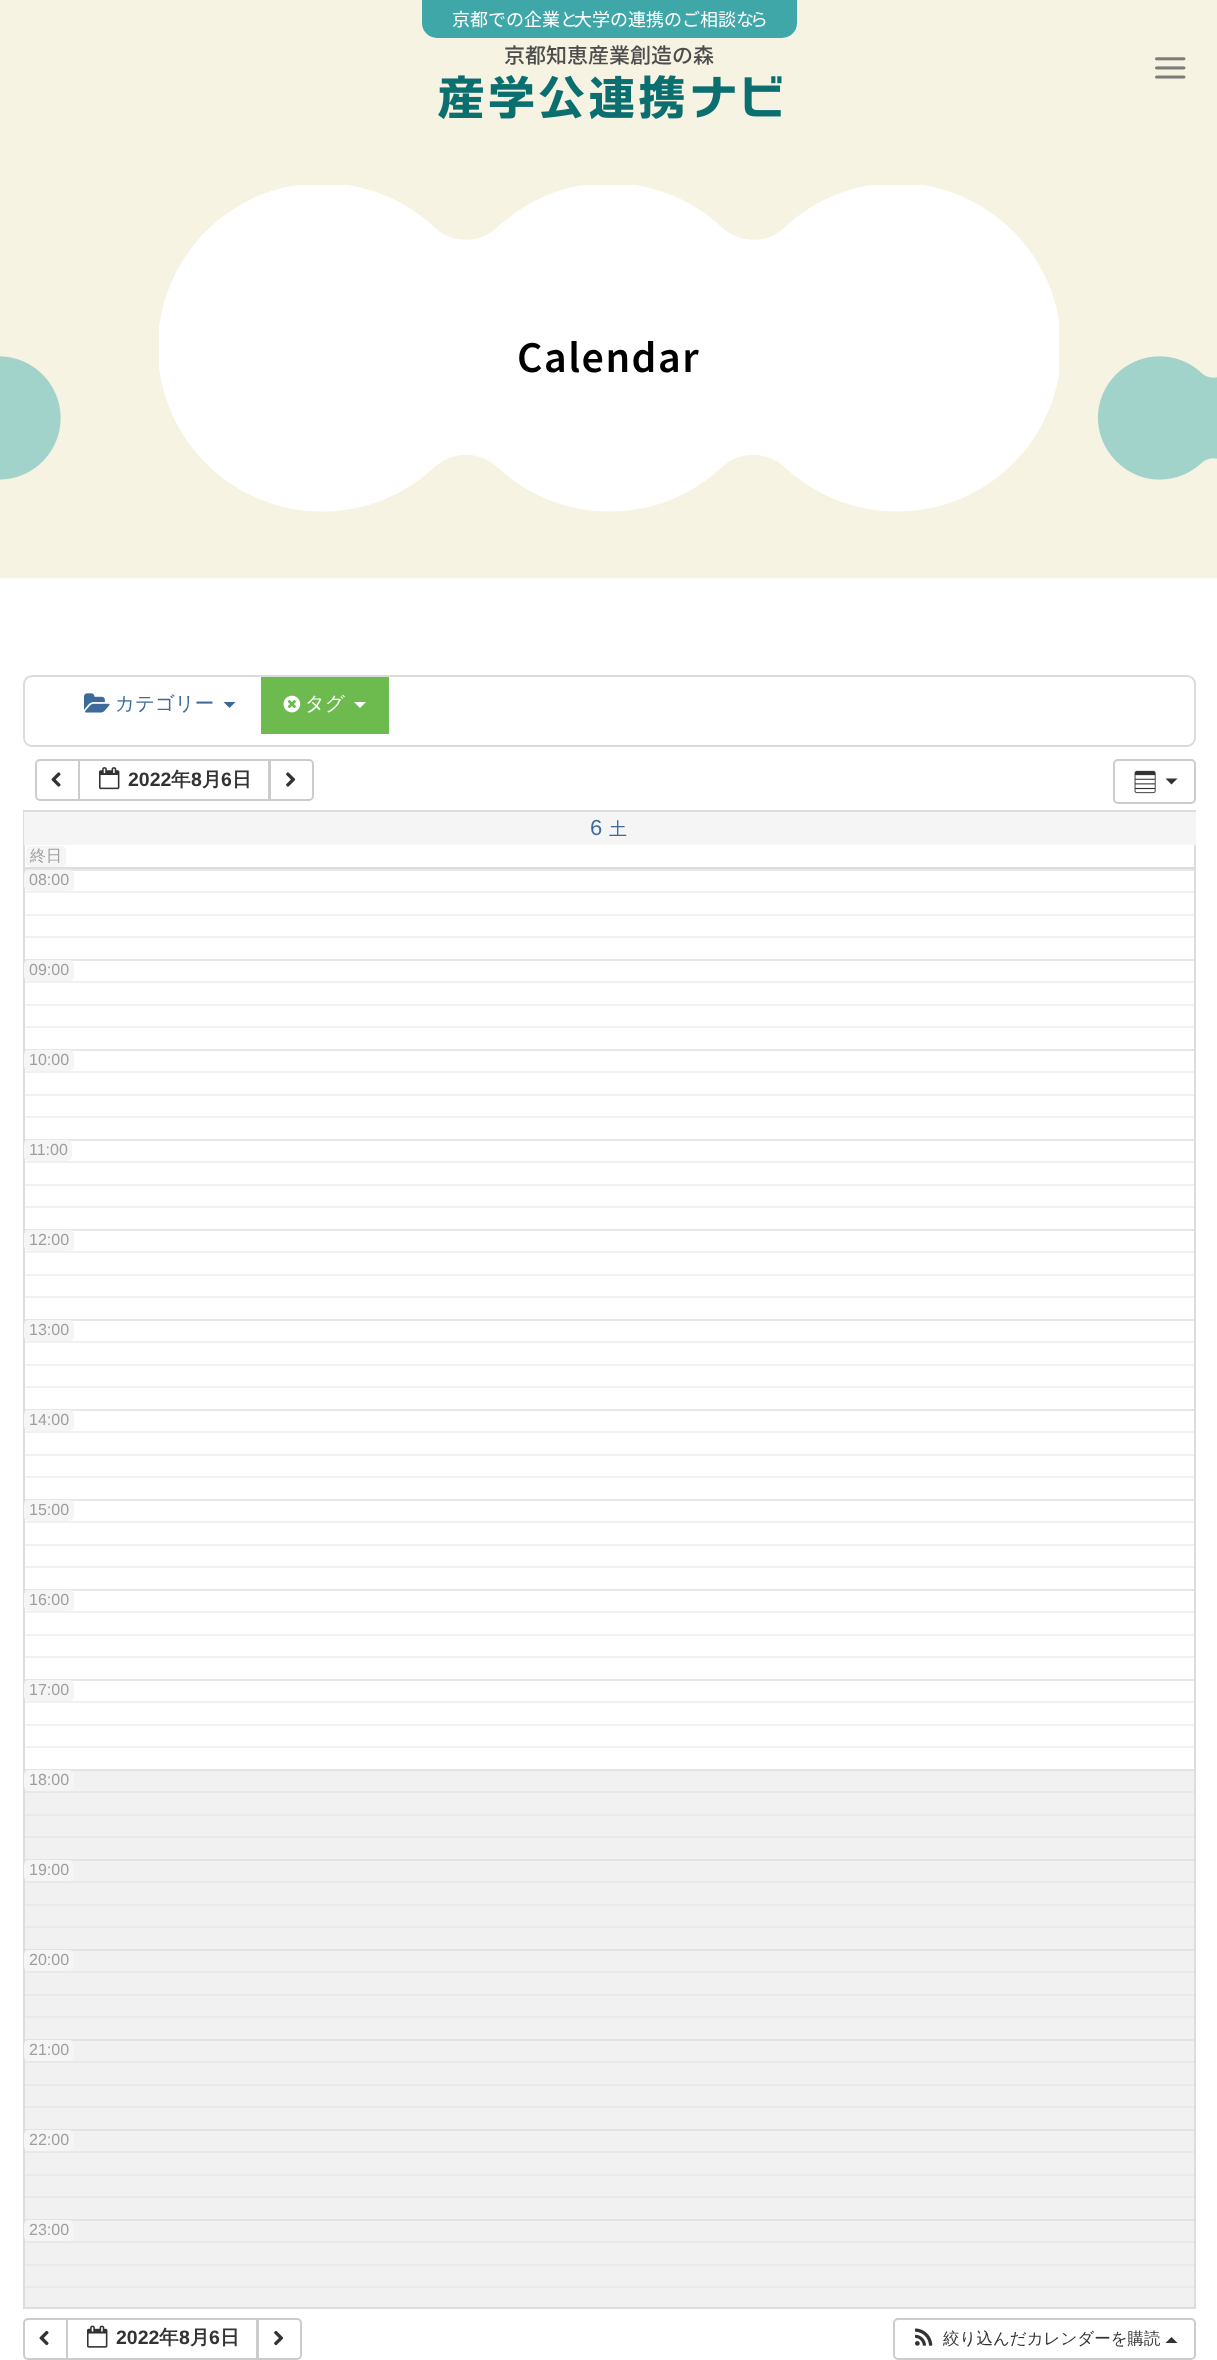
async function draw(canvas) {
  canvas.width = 1217
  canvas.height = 2360
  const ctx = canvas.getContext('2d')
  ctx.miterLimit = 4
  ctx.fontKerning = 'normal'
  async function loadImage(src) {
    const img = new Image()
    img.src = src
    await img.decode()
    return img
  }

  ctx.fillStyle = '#fff'
  ctx.fillRect(0, 0, 1217, 2360)
  ctx.fillStyle = '#f1f1f1'
  ctx.fillRect(25, 2221, 1169, 86)
  ctx.fillStyle = '#e9e9e9'
  ctx.fillRect(23, 2286, 1173, 2)
  ctx.fillRect(23, 2264, 1173, 2)
  ctx.fillRect(23, 2241, 1173, 2)
  ctx.fillStyle = '#e3e3e3'
  ctx.fillRect(23, 2219, 1173, 2)
  ctx.fillStyle = '#f1f1f1'
  ctx.fillRect(25, 2131, 1169, 88)
  ctx.fillStyle = '#e9e9e9'
  ctx.fillRect(23, 2196, 1173, 2)
  ctx.fillRect(23, 2174, 1173, 2)
  ctx.fillRect(23, 2151, 1173, 2)
  ctx.fillStyle = '#e3e3e3'
  ctx.fillRect(23, 2129, 1173, 2)
  ctx.fillStyle = '#f1f1f1'
  ctx.fillRect(25, 2041, 1169, 88)
  ctx.fillStyle = '#e9e9e9'
  ctx.fillRect(23, 2106, 1173, 2)
  ctx.fillRect(23, 2084, 1173, 2)
  ctx.fillRect(23, 2061, 1173, 2)
  ctx.fillStyle = '#e3e3e3'
  ctx.fillRect(23, 2039, 1173, 2)
  ctx.fillStyle = '#f1f1f1'
  ctx.fillRect(25, 1951, 1169, 88)
  ctx.fillStyle = '#e9e9e9'
  ctx.fillRect(23, 2016, 1173, 2)
  ctx.fillRect(23, 1994, 1173, 2)
  ctx.fillRect(23, 1971, 1173, 2)
  ctx.fillStyle = '#e3e3e3'
  ctx.fillRect(23, 1949, 1173, 2)
  ctx.fillStyle = '#f1f1f1'
  ctx.fillRect(25, 1861, 1169, 88)
  ctx.fillStyle = '#e9e9e9'
  ctx.fillRect(23, 1926, 1173, 2)
  ctx.fillRect(23, 1904, 1173, 2)
  ctx.fillRect(23, 1881, 1173, 2)
  ctx.fillStyle = '#e3e3e3'
  ctx.fillRect(23, 1859, 1173, 2)
  ctx.fillStyle = '#f1f1f1'
  ctx.fillRect(25, 1771, 1169, 88)
  ctx.fillStyle = '#e9e9e9'
  ctx.fillRect(23, 1836, 1173, 2)
  ctx.fillRect(23, 1814, 1173, 2)
  ctx.fillRect(23, 1791, 1173, 2)
  ctx.fillStyle = '#e3e3e3'
  ctx.fillRect(23, 1769, 1173, 2)
  ctx.fillStyle = '#f1f1f1'
  ctx.fillRect(23, 1746, 1173, 2)
  ctx.fillRect(23, 1724, 1173, 2)
  ctx.fillRect(23, 1701, 1173, 2)
  ctx.fillStyle = '#e7e7e7'
  ctx.fillRect(23, 1679, 1173, 2)
  ctx.fillStyle = '#f1f1f1'
  ctx.fillRect(23, 1656, 1173, 2)
  ctx.fillRect(23, 1634, 1173, 2)
  ctx.fillRect(23, 1611, 1173, 2)
  ctx.fillStyle = '#e7e7e7'
  ctx.fillRect(23, 1589, 1173, 2)
  ctx.fillStyle = '#f1f1f1'
  ctx.fillRect(23, 1566, 1173, 2)
  ctx.fillRect(23, 1544, 1173, 2)
  ctx.fillRect(23, 1521, 1173, 2)
  ctx.fillStyle = '#e7e7e7'
  ctx.fillRect(23, 1499, 1173, 2)
  ctx.fillStyle = '#f1f1f1'
  ctx.fillRect(23, 1476, 1173, 2)
  ctx.fillRect(23, 1454, 1173, 2)
  ctx.fillRect(23, 1431, 1173, 2)
  ctx.fillStyle = '#e7e7e7'
  ctx.fillRect(23, 1409, 1173, 2)
  ctx.fillStyle = '#f1f1f1'
  ctx.fillRect(23, 1386, 1173, 2)
  ctx.fillRect(23, 1364, 1173, 2)
  ctx.fillRect(23, 1341, 1173, 2)
  ctx.fillStyle = '#e7e7e7'
  ctx.fillRect(23, 1319, 1173, 2)
  ctx.fillStyle = '#f1f1f1'
  ctx.fillRect(23, 1296, 1173, 2)
  ctx.fillRect(23, 1274, 1173, 2)
  ctx.fillRect(23, 1251, 1173, 2)
  ctx.fillStyle = '#e7e7e7'
  ctx.fillRect(23, 1229, 1173, 2)
  ctx.fillStyle = '#f1f1f1'
  ctx.fillRect(23, 1206, 1173, 2)
  ctx.fillRect(23, 1184, 1173, 2)
  ctx.fillRect(23, 1161, 1173, 2)
  ctx.fillStyle = '#e7e7e7'
  ctx.fillRect(23, 1139, 1173, 2)
  ctx.fillStyle = '#f1f1f1'
  ctx.fillRect(23, 1116, 1173, 2)
  ctx.fillRect(23, 1094, 1173, 2)
  ctx.fillRect(23, 1071, 1173, 2)
  ctx.fillStyle = '#e7e7e7'
  ctx.fillRect(23, 1049, 1173, 2)
  ctx.fillStyle = '#f1f1f1'
  ctx.fillRect(23, 1026, 1173, 2)
  ctx.fillRect(23, 1004, 1173, 2)
  ctx.fillRect(23, 981, 1173, 2)
  ctx.fillStyle = '#e7e7e7'
  ctx.fillRect(23, 959, 1173, 2)
  ctx.fillStyle = '#f1f1f1'
  ctx.fillRect(23, 936, 1173, 2)
  ctx.fillRect(23, 914, 1173, 2)
  ctx.fillRect(23, 891, 1173, 2)
  ctx.fillStyle = '#e7e7e7'
  ctx.fillRect(23, 869, 1173, 2)
  ctx.fillStyle = '#f7f3e3'
  ctx.fillRect(0, 0, 1217, 578)
  ctx.fillStyle = '#40a7a8'
  ctx.beginPath()
  ctx.roundRect(422, 0, 375, 38, [0, 0, 15, 15])
  ctx.fill()
  ctx.font = '18px Noto Sans JP'
  ctx.fillStyle = '#fff'
  ctx.fillText('京都での企業と', 452, 26)
  ctx.fillText('大学の連携のご相談な', 574, 26)
  ctx.fillText('ら', 750, 26)
  ctx.font = '500 21px Noto Sans JP'
  ctx.fillStyle = '#4d4d4d'
  ctx.fillText('京都知恵産業創造の森', 504, 63)
  ctx.drawImage(await loadImage('image0.png'), 438, 75, 344, 45)
  ctx.drawImage(await loadImage('image1.png'), 1155, 57, 31, 22)
  ctx.drawImage(await loadImage('image2.png'), 159, 185, 900, 327)
  ctx.drawImage(await loadImage('image3.png'), 0, 356, 1217, 124)
  ctx.letterSpacing = '1.5px'
  ctx.font = '600 39px Noto Sans JP'
  ctx.fillStyle = '#000'
  ctx.fillText('Calendar', 517, 372)
  ctx.beginPath()
  ctx.roundRect(24, 676, 1171, 70, 8)
  ctx.strokeStyle = '#dbdbdb'
  ctx.lineWidth = 2
  ctx.stroke()
  ctx.drawImage(await loadImage('image4.png'), 84, 693, 26, 20)
  ctx.letterSpacing = '0px'
  ctx.font = '500 19.5px WenQuanYi Zen Hei'
  ctx.fillStyle = '#3d6b99'
  ctx.fillText('カテゴリー', 115, 710)
  ctx.beginPath()
  ctx.moveTo(223.5, 702)
  ctx.lineTo(235.5, 702)
  ctx.lineTo(229.5, 708)
  ctx.closePath()
  ctx.fill()
  ctx.fillStyle = '#6dbb4f'
  ctx.fillRect(261, 677, 128, 57)
  ctx.drawImage(await loadImage('image5.png'), 283, 695, 18, 18)
  ctx.fillStyle = '#fff'
  ctx.fillText('タグ', 305, 710)
  ctx.beginPath()
  ctx.moveTo(354, 702)
  ctx.lineTo(366, 702)
  ctx.lineTo(360, 708)
  ctx.closePath()
  ctx.fill()
  ctx.beginPath()
  ctx.roundRect(36, 760, 43, 40, [4, 0, 0, 4])
  ctx.strokeStyle = '#ccc'
  ctx.stroke()
  ctx.drawImage(await loadImage('image6.png'), 51, 772, 10, 15)
  ctx.strokeRect(79, 760, 190, 40)
  ctx.drawImage(await loadImage('image7.png'), 99, 767, 21, 23)
  ctx.font = 'bold 19.5px Liberation Sans'
  ctx.fillStyle = '#333'
  ctx.fillText('2022', 128, 786)
  ctx.font = 'bold 19.5px WenQuanYi Zen Hei'
  ctx.fillText('年', 171, 786)
  ctx.font = 'bold 19.5px Liberation Sans'
  ctx.fillText('8', 191, 786)
  ctx.font = 'bold 19.5px WenQuanYi Zen Hei'
  ctx.fillText('月', 202, 786)
  ctx.font = 'bold 19.5px Liberation Sans'
  ctx.fillText('6', 221, 786)
  ctx.font = 'bold 19.5px WenQuanYi Zen Hei'
  ctx.fillText('日', 232, 786)
  ctx.fillStyle = '#fff'
  ctx.beginPath()
  ctx.roundRect(270, 760, 43, 40, [0, 4, 4, 0])
  ctx.fill()
  ctx.stroke()
  ctx.drawImage(await loadImage('image8.png'), 286, 772, 10, 15)
  ctx.beginPath()
  ctx.roundRect(1114, 760, 81, 43, 4)
  ctx.stroke()
  ctx.drawImage(await loadImage('image9.png'), 1134, 770, 22, 24)
  ctx.fillStyle = '#333'
  ctx.beginPath()
  ctx.moveTo(1165.5, 778.5)
  ctx.lineTo(1177.5, 778.5)
  ctx.lineTo(1171.5, 784.5)
  ctx.closePath()
  ctx.fill()
  ctx.fillStyle = '#ddd'
  ctx.fillRect(23, 810, 1173, 2)
  ctx.fillRect(1194, 810, 2, 959)
  ctx.fillRect(23, 810, 2, 959)
  ctx.fillStyle = '#f5f5f5'
  ctx.fillRect(24, 812, 1172, 33)
  ctx.letterSpacing = '1px'
  ctx.font = '22px Liberation Sans'
  ctx.fillStyle = '#3d6b99'
  ctx.fillText('6', 590, 835)
  ctx.font = '500 18px WenQuanYi Zen Hei'
  ctx.fillText('土', 609, 835)
  ctx.fillStyle = '#ddd'
  ctx.fillRect(23, 867, 1173, 2)
  ctx.fillStyle = '#f5f5f5'
  ctx.beginPath()
  ctx.roundRect(26, 846, 40, 21, 5)
  ctx.fill()
  ctx.letterSpacing = '0px'
  ctx.font = '500 16px WenQuanYi Zen Hei'
  ctx.fillStyle = '#9e9e9e'
  ctx.fillText('終日', 30, 861)
  ctx.fillStyle = '#ddd'
  ctx.fillRect(23, 2307, 1173, 2)
  ctx.fillRect(1194, 1769, 2, 538)
  ctx.fillRect(23, 1769, 2, 538)
  ctx.fillStyle = '#f5f5f5'
  ctx.beginPath()
  ctx.roundRect(24, 870, 50, 21, 5)
  ctx.fill()
  ctx.font = '16px Liberation Sans'
  ctx.fillStyle = '#9e9e9e'
  ctx.fillText('08:00', 29, 885)
  ctx.fillStyle = '#f5f5f5'
  ctx.beginPath()
  ctx.roundRect(24, 960, 50, 21, 5)
  ctx.fill()
  ctx.fillStyle = '#9e9e9e'
  ctx.fillText('09:00', 29, 975)
  ctx.fillStyle = '#f5f5f5'
  ctx.beginPath()
  ctx.roundRect(24, 1050, 50, 21, 5)
  ctx.fill()
  ctx.fillStyle = '#9e9e9e'
  ctx.fillText('10:00', 29, 1065)
  ctx.fillStyle = '#f5f5f5'
  ctx.beginPath()
  ctx.roundRect(24, 1140, 48, 21, 5)
  ctx.fill()
  ctx.fillStyle = '#9e9e9e'
  ctx.fillText('11:00', 29, 1155)
  ctx.fillStyle = '#f5f5f5'
  ctx.beginPath()
  ctx.roundRect(24, 1230, 50, 21, 5)
  ctx.fill()
  ctx.fillStyle = '#9e9e9e'
  ctx.fillText('12:00', 29, 1245)
  ctx.fillStyle = '#f5f5f5'
  ctx.beginPath()
  ctx.roundRect(24, 1320, 50, 21, 5)
  ctx.fill()
  ctx.fillStyle = '#9e9e9e'
  ctx.fillText('13:00', 29, 1335)
  ctx.fillStyle = '#f5f5f5'
  ctx.beginPath()
  ctx.roundRect(24, 1410, 50, 21, 5)
  ctx.fill()
  ctx.fillStyle = '#9e9e9e'
  ctx.fillText('14:00', 29, 1425)
  ctx.fillStyle = '#f5f5f5'
  ctx.beginPath()
  ctx.roundRect(24, 1500, 50, 21, 5)
  ctx.fill()
  ctx.fillStyle = '#9e9e9e'
  ctx.fillText('15:00', 29, 1515)
  ctx.fillStyle = '#f5f5f5'
  ctx.beginPath()
  ctx.roundRect(24, 1590, 50, 21, 5)
  ctx.fill()
  ctx.fillStyle = '#9e9e9e'
  ctx.fillText('16:00', 29, 1605)
  ctx.fillStyle = '#f5f5f5'
  ctx.beginPath()
  ctx.roundRect(24, 1680, 50, 21, 5)
  ctx.fill()
  ctx.fillStyle = '#9e9e9e'
  ctx.fillText('17:00', 29, 1695)
  ctx.fillStyle = '#f5f5f5'
  ctx.beginPath()
  ctx.roundRect(24, 1770, 50, 21, 5)
  ctx.fill()
  ctx.fillStyle = '#9e9e9e'
  ctx.fillText('18:00', 29, 1785)
  ctx.fillStyle = '#f5f5f5'
  ctx.beginPath()
  ctx.roundRect(24, 1860, 50, 21, 5)
  ctx.fill()
  ctx.fillStyle = '#9e9e9e'
  ctx.fillText('19:00', 29, 1875)
  ctx.fillStyle = '#f5f5f5'
  ctx.beginPath()
  ctx.roundRect(24, 1950, 50, 21, 5)
  ctx.fill()
  ctx.fillStyle = '#9e9e9e'
  ctx.fillText('20:00', 29, 1965)
  ctx.fillStyle = '#f5f5f5'
  ctx.beginPath()
  ctx.roundRect(24, 2040, 50, 21, 5)
  ctx.fill()
  ctx.fillStyle = '#9e9e9e'
  ctx.fillText('21:00', 29, 2055)
  ctx.fillStyle = '#f5f5f5'
  ctx.beginPath()
  ctx.roundRect(24, 2130, 50, 21, 5)
  ctx.fill()
  ctx.fillStyle = '#9e9e9e'
  ctx.fillText('22:00', 29, 2145)
  ctx.fillStyle = '#f5f5f5'
  ctx.beginPath()
  ctx.roundRect(24, 2220, 50, 21, 5)
  ctx.fill()
  ctx.fillStyle = '#9e9e9e'
  ctx.fillText('23:00', 29, 2235)
  ctx.beginPath()
  ctx.roundRect(24, 2319, 43, 40, [4, 0, 0, 4])
  ctx.stroke()
  ctx.drawImage(await loadImage('image10.png'), 39, 2330, 10, 16)
  ctx.strokeRect(67, 2319, 190, 40)
  ctx.drawImage(await loadImage('image11.png'), 87, 2325, 21, 23)
  ctx.font = 'bold 19.5px Liberation Sans'
  ctx.fillStyle = '#333'
  ctx.fillText('2022', 116, 2344)
  ctx.font = 'bold 19.5px WenQuanYi Zen Hei'
  ctx.fillText('年', 159, 2344)
  ctx.font = 'bold 19.5px Liberation Sans'
  ctx.fillText('8', 179, 2344)
  ctx.font = 'bold 19.5px WenQuanYi Zen Hei'
  ctx.fillText('月', 190, 2344)
  ctx.font = 'bold 19.5px Liberation Sans'
  ctx.fillText('6', 209, 2344)
  ctx.font = 'bold 19.5px WenQuanYi Zen Hei'
  ctx.fillText('日', 220, 2344)
  ctx.fillStyle = '#fff'
  ctx.beginPath()
  ctx.roundRect(258, 2319, 43, 40, [0, 4, 4, 0])
  ctx.fill()
  ctx.stroke()
  ctx.drawImage(await loadImage('image12.png'), 274, 2330, 10, 16)
  ctx.beginPath()
  ctx.roundRect(894, 2319, 301, 40, 4)
  ctx.stroke()
  ctx.drawImage(await loadImage('image13.png'), 915, 2328, 18, 18)
  ctx.font = '500 16.5px WenQuanYi Zen Hei'
  ctx.fillStyle = '#333'
  ctx.fillText('絞り込んだカレンダーを購読', 943, 2344)
  ctx.beginPath()
  ctx.moveTo(1177.5, 2343)
  ctx.lineTo(1165.5, 2343)
  ctx.lineTo(1171.5, 2337)
  ctx.closePath()
  ctx.fill()
}

draw(document.querySelector('canvas'))
